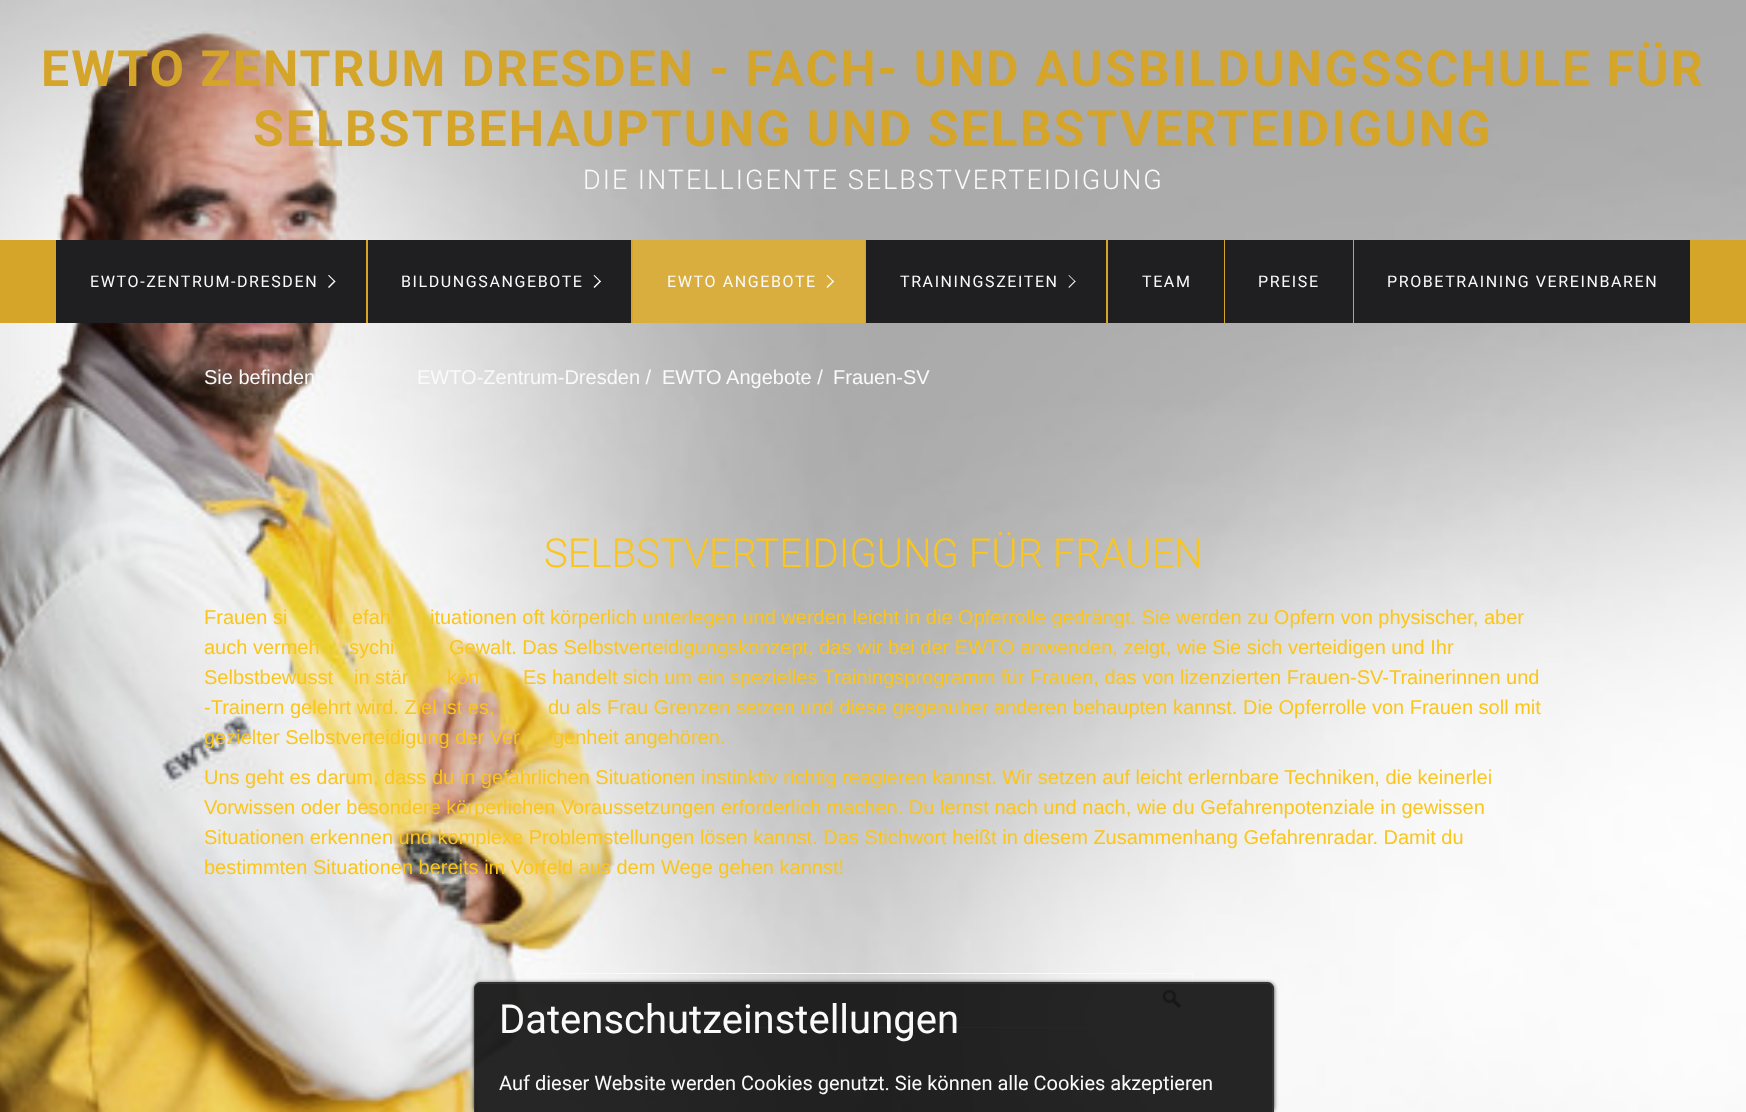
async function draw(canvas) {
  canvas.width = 1746
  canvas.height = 1112
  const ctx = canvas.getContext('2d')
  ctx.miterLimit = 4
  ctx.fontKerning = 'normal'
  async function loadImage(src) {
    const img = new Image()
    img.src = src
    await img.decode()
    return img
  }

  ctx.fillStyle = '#fff'
  ctx.fillRect(0, 0, 1746, 1112)
  ctx.drawImage(await loadImage('image0.png'), 0, 0, 1746, 1112)
  ctx.letterSpacing = '2px'
  ctx.font = 'bold 50px Roboto'
  ctx.fillStyle = '#d5a52a'
  ctx.fillText('EWTO ZENTRUM DRESDEN - FACH- UND AUSBILDUNGSSCHULE FÜR', 41, 86)
  ctx.fillText('SELBSTBEHAUPTUNG UND SELBSTVERTEIDIGUNG', 253, 146)
  ctx.font = '300 27px Roboto'
  ctx.fillStyle = '#fafafa'
  ctx.fillText('DIE INTELLIGENTE SELBSTVERTEIDIGUNG', 583, 189)
  ctx.fillStyle = '#d5a52a'
  ctx.fillRect(0, 240, 1746, 83)
  ctx.fillStyle = '#1f1e21'
  ctx.fillRect(56, 240, 310, 83)
  ctx.letterSpacing = '1.6px'
  ctx.font = '16px Roboto'
  ctx.fillStyle = '#fafafa'
  ctx.fillText('EWTO-ZENTRUM-DRESDEN', 90, 287)
  ctx.fillStyle = '#fff'
  ctx.beginPath()
  ctx.moveTo(329, 275)
  ctx.lineTo(335.5, 281.5)
  ctx.lineTo(334.5, 282)
  ctx.lineTo(328, 275.5)
  ctx.closePath()
  ctx.fill()
  ctx.beginPath()
  ctx.moveTo(334.5, 280.5)
  ctx.lineTo(335.5, 281.5)
  ctx.lineTo(329, 288)
  ctx.lineTo(328, 287)
  ctx.closePath()
  ctx.fill()
  ctx.fillStyle = '#1f1e21'
  ctx.fillRect(368, 240, 263, 83)
  ctx.fillStyle = '#fafafa'
  ctx.fillText('BILDUNGSANGEBOTE', 401, 287)
  ctx.fillStyle = '#fff'
  ctx.beginPath()
  ctx.moveTo(594.5, 275)
  ctx.lineTo(601, 281.5)
  ctx.lineTo(600, 282)
  ctx.lineTo(593.5, 275.5)
  ctx.closePath()
  ctx.fill()
  ctx.beginPath()
  ctx.moveTo(600, 280.5)
  ctx.lineTo(601, 281.5)
  ctx.lineTo(594.5, 288)
  ctx.lineTo(593.5, 287)
  ctx.closePath()
  ctx.fill()
  ctx.fillStyle = '#d9ae3f'
  ctx.fillRect(633, 240, 232, 83)
  ctx.fillStyle = '#fafafa'
  ctx.fillText('EWTO ANGEBOTE', 667, 287)
  ctx.fillStyle = '#fff'
  ctx.beginPath()
  ctx.moveTo(827.5, 275)
  ctx.lineTo(834, 281.5)
  ctx.lineTo(833, 282)
  ctx.lineTo(826.5, 275.5)
  ctx.closePath()
  ctx.fill()
  ctx.beginPath()
  ctx.moveTo(833, 280.5)
  ctx.lineTo(834, 281.5)
  ctx.lineTo(827.5, 288)
  ctx.lineTo(826.5, 287)
  ctx.closePath()
  ctx.fill()
  ctx.fillStyle = '#1f1e21'
  ctx.fillRect(866, 240, 240, 83)
  ctx.fillStyle = '#fafafa'
  ctx.fillText('TRAININGSZEITEN', 900, 287)
  ctx.fillStyle = '#fff'
  ctx.beginPath()
  ctx.moveTo(1069, 275)
  ctx.lineTo(1075.5, 281.5)
  ctx.lineTo(1075, 282)
  ctx.lineTo(1068.5, 275.5)
  ctx.closePath()
  ctx.fill()
  ctx.beginPath()
  ctx.moveTo(1075, 280.5)
  ctx.lineTo(1075.5, 281.5)
  ctx.lineTo(1069, 288)
  ctx.lineTo(1068.5, 287)
  ctx.closePath()
  ctx.fill()
  ctx.fillStyle = '#1f1e21'
  ctx.fillRect(1108, 240, 116, 83)
  ctx.fillStyle = '#fafafa'
  ctx.fillText('TEAM', 1142, 287)
  ctx.fillStyle = '#1f1e21'
  ctx.fillRect(1225, 240, 128, 83)
  ctx.fillStyle = '#fafafa'
  ctx.fillText('PREISE', 1258, 287)
  ctx.fillStyle = '#1f1e21'
  ctx.fillRect(1354, 240, 336, 83)
  ctx.fillStyle = '#fafafa'
  ctx.fillText('PROBETRAINING VEREINBAREN', 1387, 287)
  ctx.letterSpacing = '0px'
  ctx.font = '20px Liberation Sans'
  ctx.fillText('Sie befinden', 204, 384)
  ctx.fillText('EWTO-Zentrum-Dresden /', 417, 384)
  ctx.fillText('EWTO Angebote /', 662, 384)
  ctx.fillText('Frauen-SV', 833, 384)
  ctx.font = '300 40px Roboto'
  ctx.fillStyle = '#fac51c'
  ctx.fillText('SELBSTVERTEIDIGUNG FÜR FRAUEN', 544, 567)
  ctx.font = '20px Liberation Sans'
  ctx.fillText('Frauen si', 204, 624)
  ctx.fillText('efah', 352, 624)
  ctx.fillText('ituationen oft körperlich unterlegen und werden leicht in die Opferrolle gedrängt. Sie werden zu Opfern von physischer, aber', 430, 624)
  ctx.fillText('auch vermeh', 204, 654)
  ctx.fillText('sychi', 349, 654)
  ctx.fillText('Gewalt. Das Selbstverteidigungskonzept, das wir bei der EWTO anwenden, zeigt, wie Sie sich verteidigen und Ihr', 449, 654)
  ctx.fillText('Selbstbewusst', 204, 684)
  ctx.fillText('in stär', 354, 684)
  ctx.fillText('kön', 447, 684)
  ctx.fillText('Es handelt sich um ein spezielles Trainingsprogramm für Frauen, das von lizenzierten Frauen-SV-Trainerinnen und', 523, 684)
  ctx.fillText('-Trainern gelehrt wird. Ziel ist es,', 204, 714)
  ctx.fillText('du als Frau Grenzen setzen und diese gegenüber anderen behaupten kannst. Die Opferrolle von Frauen soll mit', 548, 714)
  ctx.fillText('gezielter Selbstverteidigung der Ver', 204, 744)
  ctx.fillText('genheit angehören.', 553, 744)
  ctx.fillText('Uns geht es darum, dass du in gefährlichen Situationen instinktiv richtig reagieren kannst. Wir setzen auf leicht erlernbare Techniken, die keinerlei', 204, 784)
  ctx.fillText('Vorwissen oder besondere körperlichen Voraussetzungen erforderlich machen. Du lernst nach und nach, wie du Gefahrenpotenziale in gewissen', 204, 814)
  ctx.fillText('Situationen erkennen und komplexe Problemstellungen lösen kannst. Das Stichwort heißt in diesem Zusammenhang Gefahrenradar. Damit du', 204, 844)
  ctx.fillText('bestimmten Situationen bereits im Vorfeld aus dem Wege gehen kannst!', 204, 874)
  ctx.strokeStyle = '#fafafa'
  ctx.strokeRect(555.5, 973.5, 637, 54)
  ctx.drawImage(await loadImage('image1.png'), 1162, 989, 20, 20)
  ctx.save()
  ctx.beginPath()
  ctx.moveTo(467, 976)
  ctx.lineTo(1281, 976)
  ctx.lineTo(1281, 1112)
  ctx.lineTo(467, 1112)
  ctx.closePath()
  ctx.moveTo(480, 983)
  ctx.lineTo(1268, 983)
  ctx.bezierCurveTo(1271.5, 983, 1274, 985.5, 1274, 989)
  ctx.lineTo(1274, 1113)
  ctx.lineTo(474, 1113)
  ctx.lineTo(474, 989)
  ctx.bezierCurveTo(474, 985.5, 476.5, 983, 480, 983)
  ctx.closePath()
  ctx.clip('evenodd')
  ctx.fillStyle = '#000000cc'
  ctx.filter = 'blur(2px)'
  ctx.beginPath()
  ctx.roundRect(474, 983, 800, 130, 6)
  ctx.fill()
  ctx.filter = 'none'
  ctx.restore()
  ctx.fillStyle = '#000000d9'
  ctx.beginPath()
  ctx.moveTo(480, 983)
  ctx.lineTo(1268, 983)
  ctx.bezierCurveTo(1271.5, 983, 1274, 985.5, 1274, 989)
  ctx.lineTo(1274, 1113)
  ctx.lineTo(474, 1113)
  ctx.lineTo(474, 989)
  ctx.bezierCurveTo(474, 985.5, 476.5, 983, 480, 983)
  ctx.closePath()
  ctx.fill()
  ctx.fillStyle = '#333'
  ctx.beginPath()
  ctx.moveTo(480, 982)
  ctx.lineTo(1268, 982)
  ctx.bezierCurveTo(1271, 982, 1274, 985, 1274, 989)
  ctx.lineTo(1274, 1112)
  ctx.lineTo(474, 1112)
  ctx.lineTo(474, 989)
  ctx.bezierCurveTo(474, 985, 477, 982, 480, 982)
  ctx.closePath()
  ctx.moveTo(480, 984)
  ctx.lineTo(1268, 984)
  ctx.bezierCurveTo(1270, 984, 1272, 986, 1272, 989)
  ctx.lineTo(1272, 1112)
  ctx.lineTo(475, 1112)
  ctx.lineTo(475, 989)
  ctx.bezierCurveTo(475, 986, 477, 984, 480, 984)
  ctx.closePath()
  ctx.fill('evenodd')
  ctx.font = '40px Roboto'
  ctx.fillStyle = '#fafafa'
  ctx.fillText('Datenschutzeinstellungen', 499, 1033)
  ctx.font = '20px Roboto'
  ctx.fillText('Auf dieser Website werden Cookies genutzt. Sie können alle Cookies akzeptieren', 499, 1090)
}

draw(document.querySelector('canvas'))
